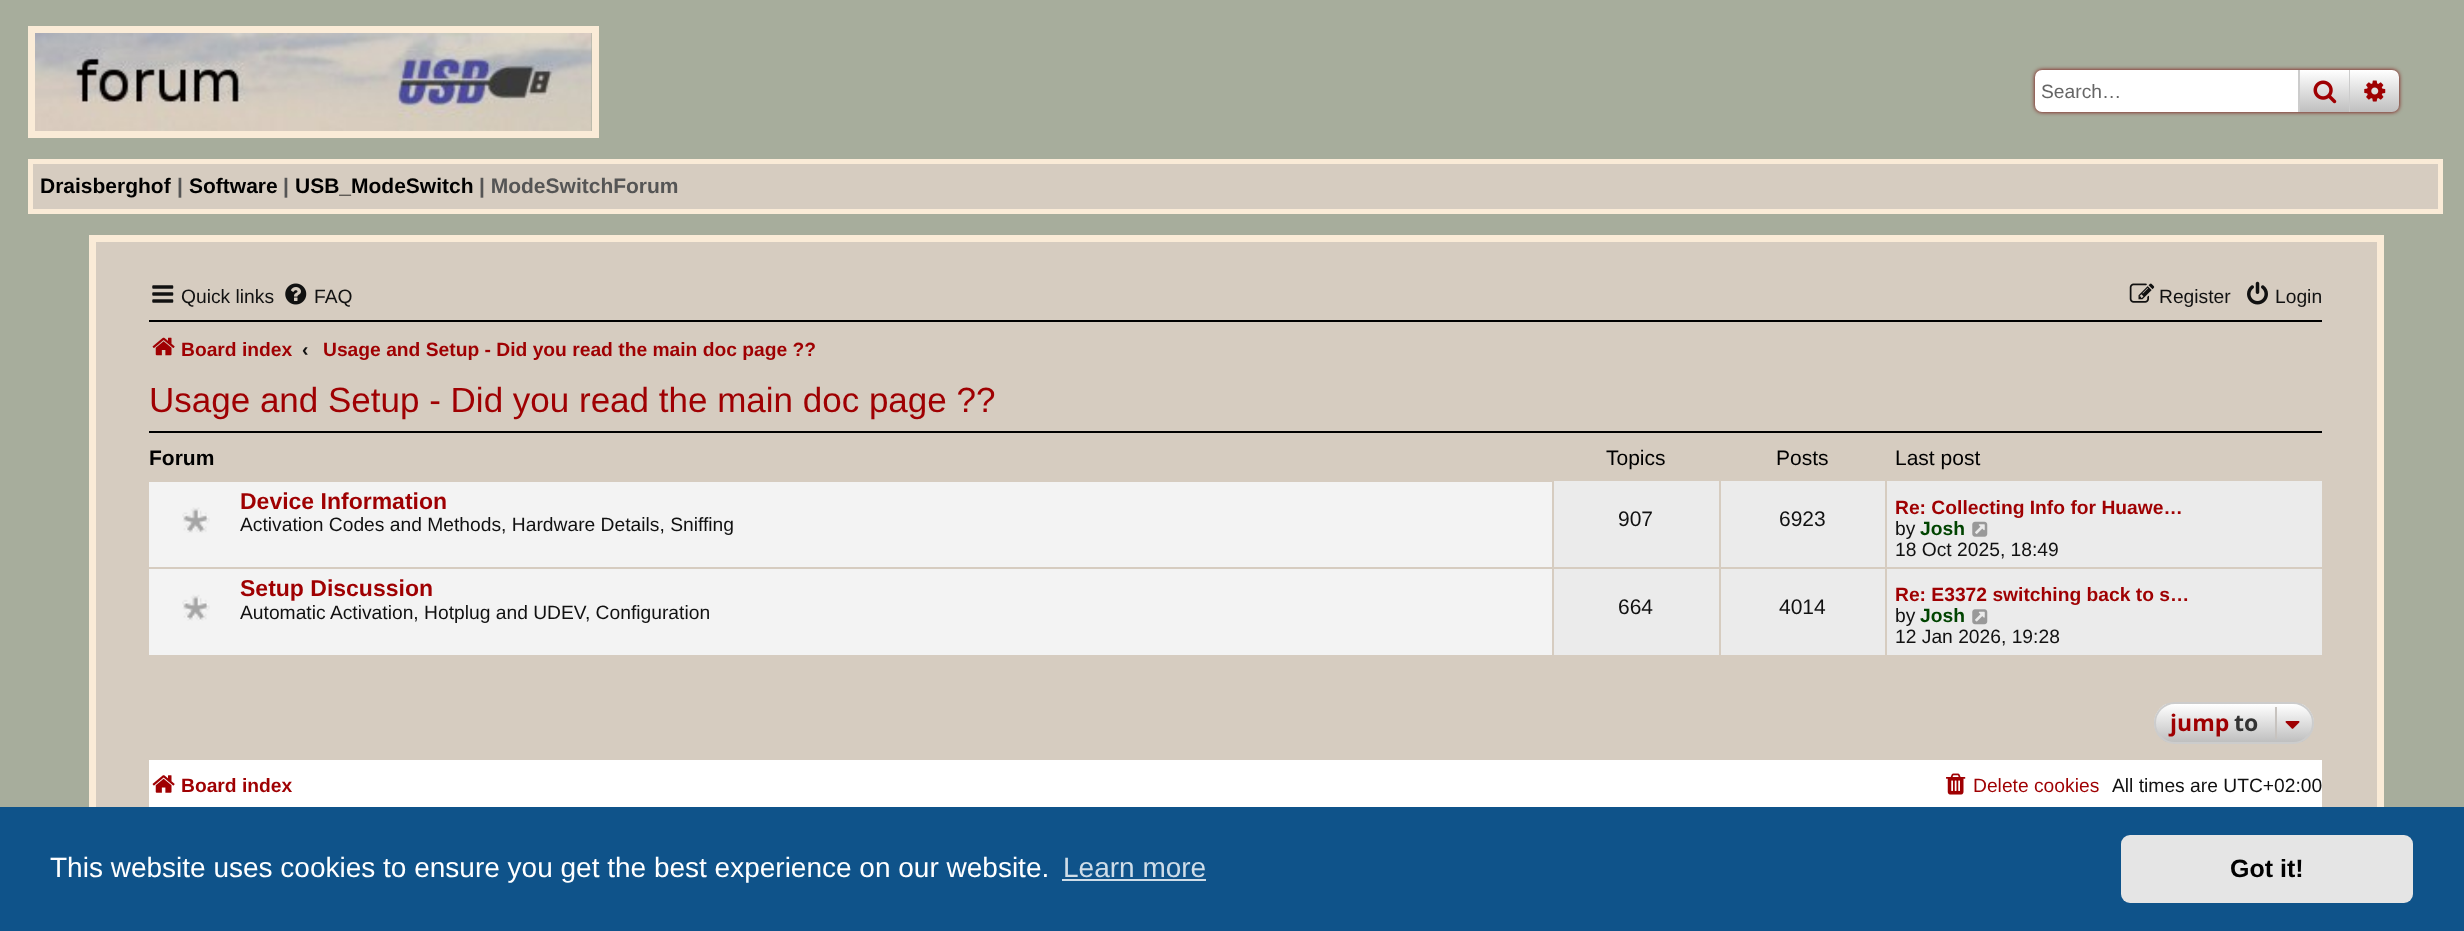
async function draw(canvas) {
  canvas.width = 2464
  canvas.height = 931
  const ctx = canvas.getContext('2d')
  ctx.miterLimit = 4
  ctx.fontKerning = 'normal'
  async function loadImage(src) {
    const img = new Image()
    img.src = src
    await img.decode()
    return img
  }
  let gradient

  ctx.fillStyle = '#a7ad9c'
  ctx.fillRect(0, 0, 2464, 931)
  ctx.strokeStyle = '#faebd7'
  ctx.lineWidth = 7
  ctx.strokeRect(31.5, 29.5, 564, 105)
  ctx.drawImage(await loadImage('image0.png'), 35, 33, 557, 98)
  ctx.fillStyle = '#760000'
  ctx.filter = 'blur(2px)'
  ctx.beginPath()
  ctx.roundRect(2035, 70, 364, 42, 7)
  ctx.fill()
  ctx.filter = 'none'
  ctx.fillStyle = '#fff'
  ctx.beginPath()
  ctx.roundRect(2035, 70, 263, 42, [7, 0, 0, 7])
  ctx.fill()
  ctx.font = '19.25px Liberation Sans'
  ctx.fillStyle = '#666'
  ctx.fillText('Search…', 2041, 98)
  gradient = ctx.createLinearGradient(2324, 70, 2324, 112)
  gradient.addColorStop(0, '#fff')
  gradient.addColorStop(1, '#bfbfbf')
  ctx.fillStyle = gradient
  ctx.fillRect(2300, 70, 49, 42)
  ctx.fillStyle = '#ccc'
  ctx.fillRect(2349, 70, 1, 42)
  ctx.fillRect(2298, 70, 2, 42)
  ctx.drawImage(await loadImage('image1.png'), 2313, 80, 24, 24)
  gradient = ctx.createLinearGradient(2375, 70, 2375, 112)
  gradient.addColorStop(0, '#fff')
  gradient.addColorStop(1, '#bfbfbf')
  ctx.fillStyle = gradient
  ctx.beginPath()
  ctx.roundRect(2350, 70, 49, 42, [0, 7, 7, 0])
  ctx.fill()
  ctx.drawImage(await loadImage('image2.png'), 2364, 80, 22, 22)
  ctx.fillStyle = '#d6ccc0'
  ctx.beginPath()
  ctx.rect(30.5, 161.5, 2410, 50)
  ctx.fill()
  ctx.lineWidth = 5
  ctx.stroke()
  ctx.font = 'bold 21px Liberation Sans'
  ctx.fillStyle = '#000'
  ctx.fillText('Draisberghof', 40, 193)
  ctx.fillStyle = '#555'
  ctx.fillText('|', 177, 193)
  ctx.fillStyle = '#000'
  ctx.fillText('Software', 189, 193)
  ctx.fillStyle = '#555'
  ctx.fillText('|', 283, 193)
  ctx.fillStyle = '#000'
  ctx.fillText('USB_ModeSwitch', 295, 193)
  ctx.fillStyle = '#555'
  ctx.fillText('| ModeSwitchForum', 479, 193)
  ctx.fillStyle = '#d6ccc0'
  ctx.fillRect(96, 242, 2281, 565)
  ctx.fillStyle = '#faebd7'
  ctx.fillRect(89, 235, 2295, 7)
  ctx.fillRect(2377, 235, 7, 572)
  ctx.fillRect(89, 235, 7, 572)
  ctx.drawImage(await loadImage('image3.png'), 152, 285, 22, 18)
  ctx.font = '19.25px Liberation Sans'
  ctx.fillStyle = '#111'
  ctx.fillText('Quick links', 181, 303)
  ctx.drawImage(await loadImage('image4.png'), 285, 283, 22, 22)
  ctx.fillText('FAQ', 314, 303)
  ctx.drawImage(await loadImage('image5.png'), 2129, 283, 26, 20)
  ctx.fillText('Register', 2159, 303)
  ctx.drawImage(await loadImage('image6.png'), 2247, 281, 21, 24)
  ctx.fillText('Login', 2275, 303)
  ctx.fillStyle = '#000'
  ctx.fillRect(149, 320, 2173, 2)
  ctx.drawImage(await loadImage('image7.png'), 152, 337, 23, 19)
  ctx.font = 'bold 19.25px Liberation Sans'
  ctx.fillStyle = '#9f0002'
  ctx.fillText('Board index', 181, 356)
  ctx.fillStyle = '#111'
  ctx.fillText('‹', 302, 356)
  ctx.fillStyle = '#9f0002'
  ctx.fillText('Usage and Setup - Did you read the main doc page ??', 323, 356)
  ctx.font = '35px Liberation Sans'
  ctx.fillText('Usage and Setup - Did you read the main doc page ??', 149, 412)
  ctx.fillStyle = '#000'
  ctx.fillRect(149, 431, 2173, 2)
  ctx.font = 'bold 21px Liberation Sans'
  ctx.fillText('Forum', 149, 465)
  ctx.font = '21px Liberation Sans'
  ctx.fillText('Topics', 1606, 465)
  ctx.fillText('Posts', 1776, 465)
  ctx.fillText('Last post', 1895, 465)
  ctx.fillStyle = '#f3f3f3'
  ctx.fillRect(149, 482, 1403, 173)
  ctx.drawImage(await loadImage('image8.png'), 182, 507, 28, 26)
  ctx.font = 'bold 23px Liberation Sans'
  ctx.fillStyle = '#9f0002'
  ctx.fillText('Device Information', 240, 509)
  ctx.font = '19.25px Liberation Sans'
  ctx.fillStyle = '#111'
  ctx.fillText('Activation Codes and Methods, Hardware Details, Sniffing', 240, 531)
  ctx.fillStyle = '#ebebeb'
  ctx.fillRect(1554, 481, 165, 86)
  ctx.font = '21px Liberation Sans'
  ctx.fillStyle = '#111'
  ctx.fillText('907', 1618, 526)
  ctx.fillStyle = '#ebebeb'
  ctx.fillRect(1721, 481, 164, 86)
  ctx.fillStyle = '#111'
  ctx.fillText('6923', 1779, 526)
  ctx.fillStyle = '#ebebeb'
  ctx.fillRect(1887, 481, 435, 86)
  ctx.font = 'bold 19.25px Liberation Sans'
  ctx.fillStyle = '#9f0002'
  ctx.fillText('Re: Collecting Info for Huawe…', 1895, 514)
  ctx.font = '19.25px Liberation Sans'
  ctx.fillStyle = '#111'
  ctx.fillText('by', 1895, 535)
  ctx.font = 'bold 19.25px Liberation Sans'
  ctx.fillStyle = '#040'
  ctx.fillText('Josh', 1920, 535)
  ctx.drawImage(await loadImage('image9.png'), 1972, 521, 16, 16)
  ctx.font = '19.25px Liberation Sans'
  ctx.fillStyle = '#111'
  ctx.fillText('18 Oct 2025, 18:49', 1895, 556)
  ctx.fillStyle = '#d6ccc0'
  ctx.fillRect(149, 567, 1403, 2)
  ctx.drawImage(await loadImage('image10.png'), 182, 594, 28, 27)
  ctx.font = 'bold 23px Liberation Sans'
  ctx.fillStyle = '#9f0002'
  ctx.fillText('Setup Discussion', 240, 596)
  ctx.font = '19.25px Liberation Sans'
  ctx.fillStyle = '#111'
  ctx.fillText('Automatic Activation, Hotplug and UDEV, Configuration', 240, 619)
  ctx.fillStyle = '#ebebeb'
  ctx.fillRect(1554, 569, 165, 86)
  ctx.font = '21px Liberation Sans'
  ctx.fillStyle = '#111'
  ctx.fillText('664', 1618, 614)
  ctx.fillStyle = '#ebebeb'
  ctx.fillRect(1721, 569, 164, 86)
  ctx.fillStyle = '#111'
  ctx.fillText('4014', 1779, 614)
  ctx.fillStyle = '#ebebeb'
  ctx.fillRect(1887, 569, 435, 86)
  ctx.font = 'bold 19.25px Liberation Sans'
  ctx.fillStyle = '#9f0002'
  ctx.fillText('Re: E3372 switching back to s…', 1895, 601)
  ctx.font = '19.25px Liberation Sans'
  ctx.fillStyle = '#111'
  ctx.fillText('by', 1895, 622)
  ctx.font = 'bold 19.25px Liberation Sans'
  ctx.fillStyle = '#040'
  ctx.fillText('Josh', 1920, 622)
  ctx.drawImage(await loadImage('image11.png'), 1972, 609, 16, 16)
  ctx.font = '19.25px Liberation Sans'
  ctx.fillStyle = '#111'
  ctx.fillText('12 Jan 2026, 19:28', 1895, 643)
  ctx.save()
  ctx.beginPath()
  ctx.roundRect(2154, 702, 160, 42, 21)
  ctx.clip()
  gradient = ctx.createLinearGradient(2234, 704, 2234, 742)
  gradient.addColorStop(0, '#fff')
  gradient.addColorStop(1, '#bfbfbf')
  ctx.fillStyle = gradient
  ctx.fillRect(2154, 704, 160, 38)
  ctx.restore()
  ctx.beginPath()
  ctx.roundRect(2155, 703, 158, 40, 20)
  ctx.strokeStyle = '#ccc'
  ctx.lineWidth = 2
  ctx.stroke()
  ctx.font = 'bold 23px Open Sans'
  ctx.fillStyle = '#9f0002'
  ctx.fillText('jump', 2170, 731)
  ctx.fillStyle = '#333'
  ctx.fillText('to', 2234, 731)
  ctx.fillStyle = '#c7c3bf'
  ctx.fillRect(2275, 707, 2, 32)
  ctx.drawImage(await loadImage('image12.png'), 2285, 721, 15, 8)
  ctx.fillStyle = '#fff'
  ctx.fillRect(149, 760, 2173, 47)
  ctx.drawImage(await loadImage('image13.png'), 152, 775, 23, 18)
  ctx.font = 'bold 19.25px Liberation Sans'
  ctx.fillStyle = '#9f0002'
  ctx.fillText('Board index', 181, 792)
  ctx.drawImage(await loadImage('image14.png'), 1946, 773, 20, 22)
  ctx.font = '19.25px Liberation Sans'
  ctx.fillText('Delete cookies', 1973, 792)
  ctx.fillStyle = '#111'
  ctx.fillText('All times are UTC+02:00', 2112, 792)
  ctx.fillStyle = '#0f538a'
  ctx.fillRect(0, 807, 2464, 124)
  ctx.font = '28px Liberation Sans'
  ctx.fillStyle = '#fff'
  ctx.fillText('This website uses cookies to ensure you get the best experience on our website.', 50, 877)
  ctx.fillStyle = '#cfdde8'
  ctx.fillText('Learn more', 1063, 877)
  ctx.fillRect(1062, 879, 144, 2)
  ctx.fillStyle = '#e5e5e5'
  ctx.beginPath()
  ctx.roundRect(2121, 835, 292, 68, 9)
  ctx.fill()
  ctx.font = 'bold 25px Liberation Sans'
  ctx.fillStyle = '#000'
  ctx.fillText('Got it!', 2230, 877)
}

draw(document.querySelector('canvas'))
